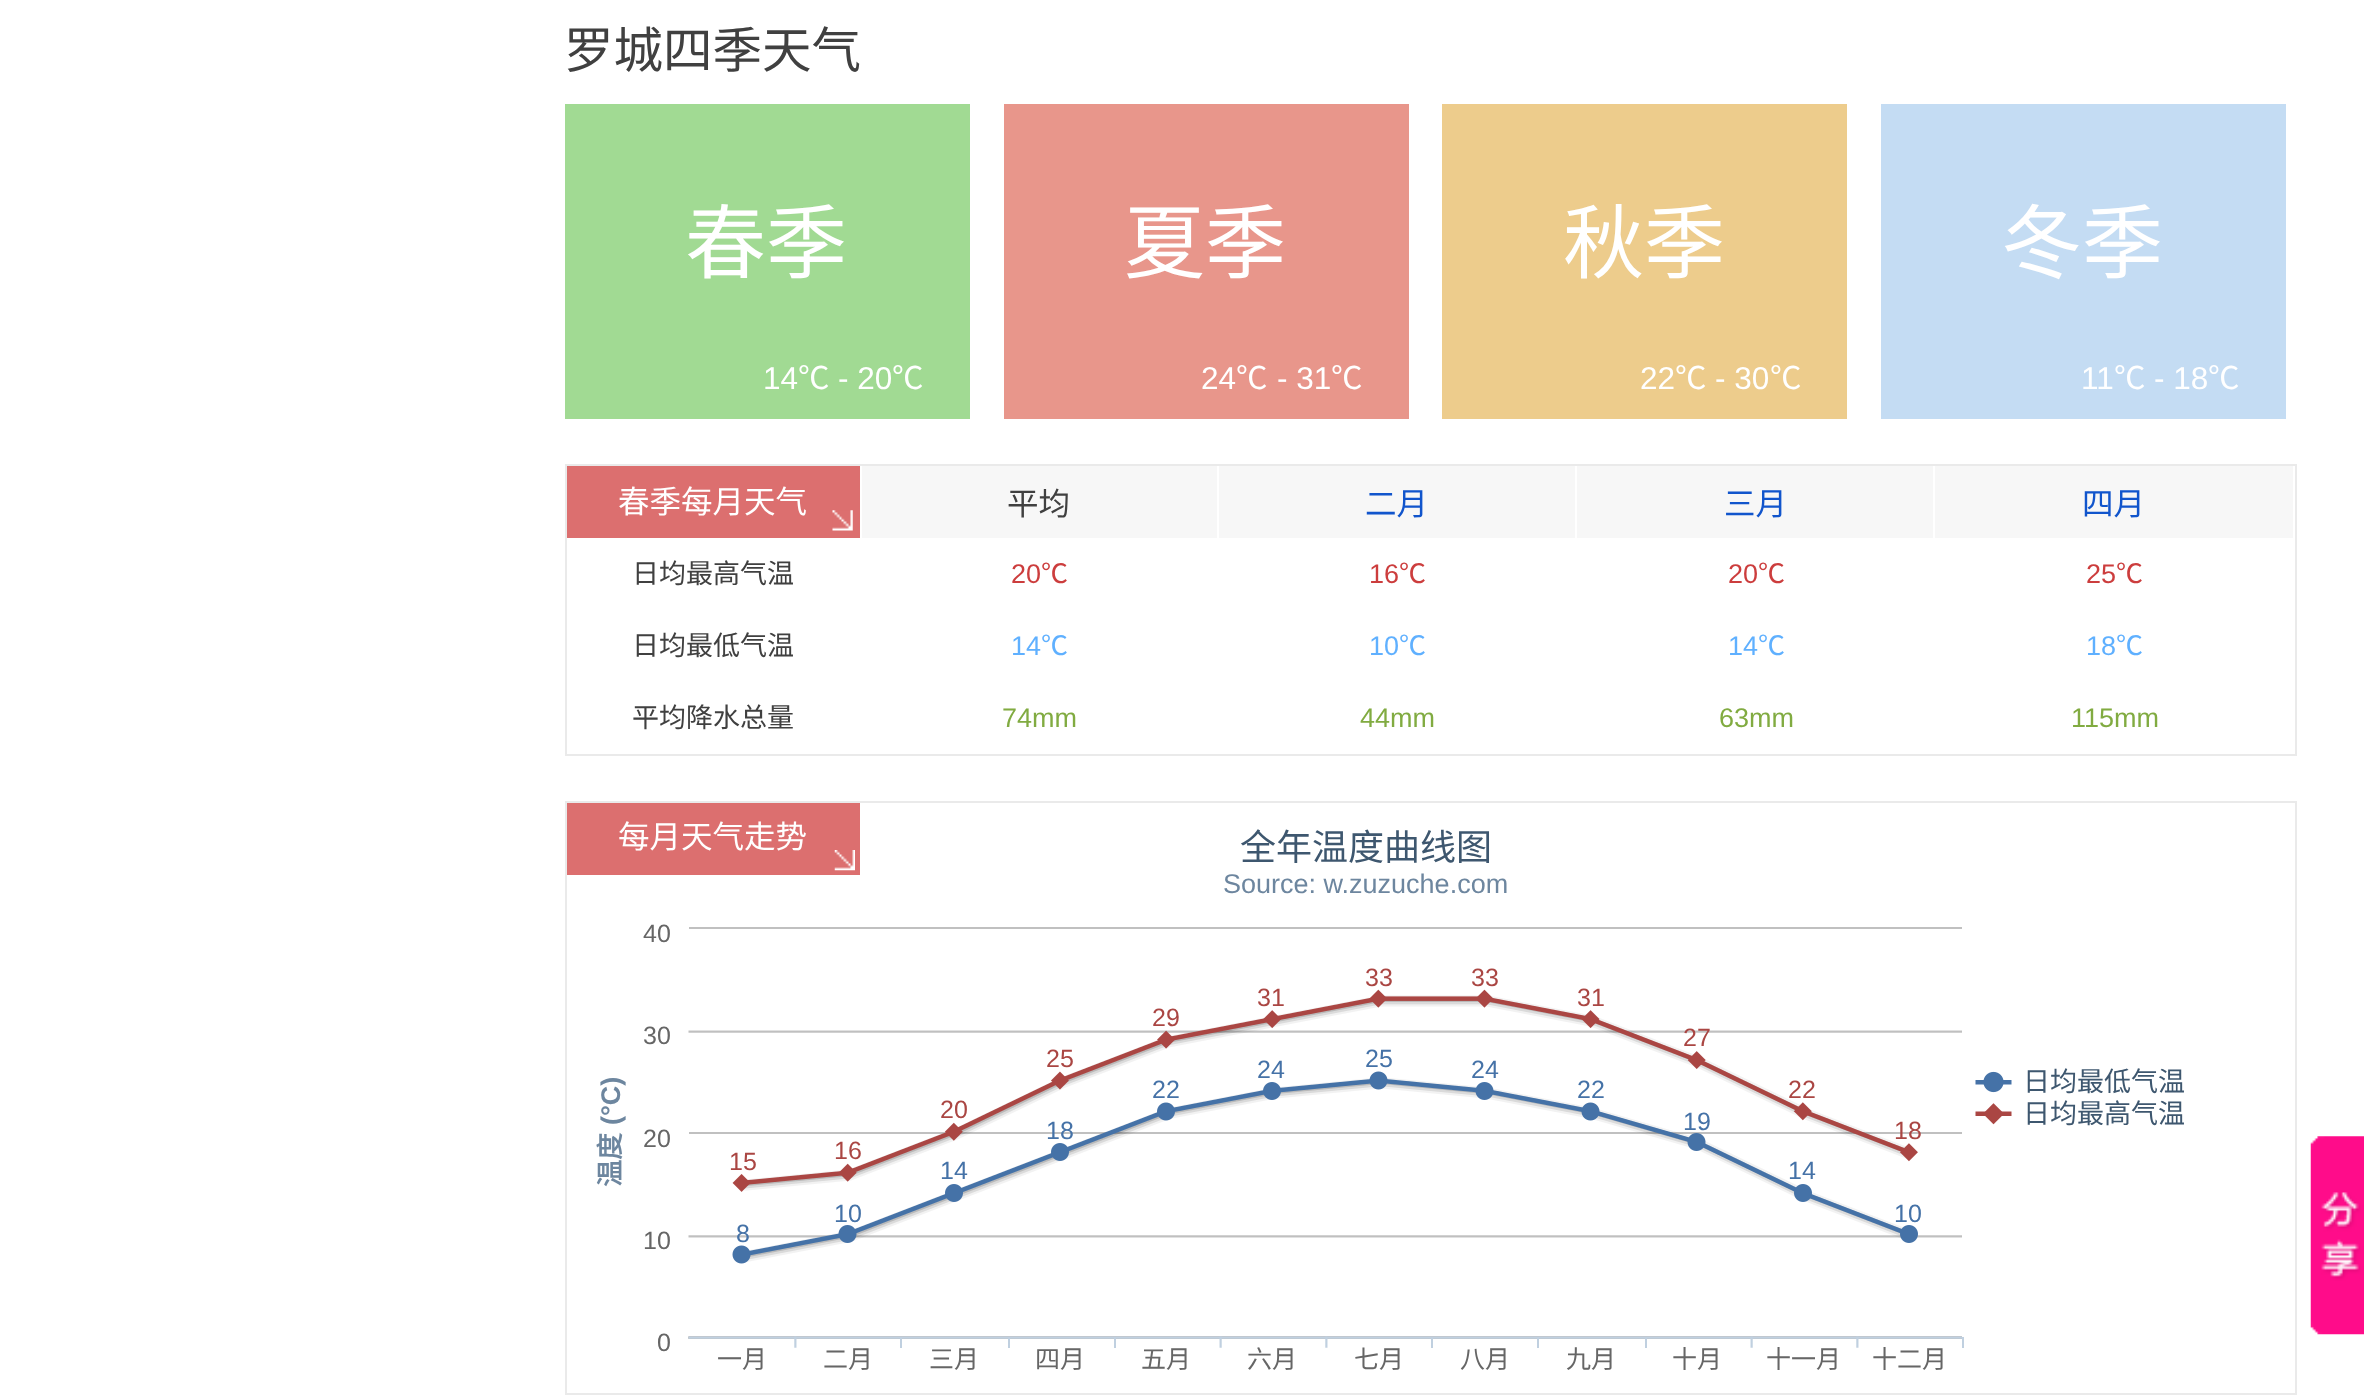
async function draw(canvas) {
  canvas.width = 2364
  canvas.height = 1397
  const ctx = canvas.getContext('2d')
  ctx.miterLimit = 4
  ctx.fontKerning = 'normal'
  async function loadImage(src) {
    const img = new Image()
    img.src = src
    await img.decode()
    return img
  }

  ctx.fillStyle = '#fff'
  ctx.fillRect(0, 0, 2364, 1397)
  ctx.font = '49.5px Noto Sans CJK SC'
  ctx.fillStyle = '#404040'
  ctx.fillText('罗城四季天气', 564, 68)
  ctx.fillStyle = '#a1da93'
  ctx.fillRect(565, 104, 405, 315)
  ctx.font = '81px Noto Sans CJK SC'
  ctx.fillStyle = '#fff'
  ctx.fillText('春季', 685, 272)
  ctx.font = '31.5px Liberation Sans'
  ctx.fillText('14', 763, 389)
  ctx.font = '31.5px Noto Sans CJK SC'
  ctx.fillText('℃', 798, 389)
  ctx.font = '31.5px Liberation Sans'
  ctx.fillText('- 20', 838, 389)
  ctx.font = '31.5px Noto Sans CJK SC'
  ctx.fillText('℃', 892, 389)
  ctx.fillStyle = '#e8968b'
  ctx.fillRect(1004, 104, 405, 315)
  ctx.font = '81px Noto Sans CJK SC'
  ctx.fillStyle = '#fff'
  ctx.fillText('夏季', 1124, 272)
  ctx.font = '31.5px Liberation Sans'
  ctx.fillText('24', 1201, 389)
  ctx.font = '31.5px Noto Sans CJK SC'
  ctx.fillText('℃', 1236, 389)
  ctx.font = '31.5px Liberation Sans'
  ctx.fillText('- 31', 1277, 389)
  ctx.font = '31.5px Noto Sans CJK SC'
  ctx.fillText('℃', 1331, 389)
  ctx.fillStyle = '#edcc8c'
  ctx.fillRect(1442, 104, 405, 315)
  ctx.font = '81px Noto Sans CJK SC'
  ctx.fillStyle = '#fff'
  ctx.fillText('秋季', 1563, 272)
  ctx.font = '31.5px Liberation Sans'
  ctx.fillText('22', 1640, 389)
  ctx.font = '31.5px Noto Sans CJK SC'
  ctx.fillText('℃', 1675, 389)
  ctx.font = '31.5px Liberation Sans'
  ctx.fillText('- 30', 1715, 389)
  ctx.font = '31.5px Noto Sans CJK SC'
  ctx.fillText('℃', 1770, 389)
  ctx.fillStyle = '#c4dcf3'
  ctx.fillRect(1881, 104, 405, 315)
  ctx.font = '81px Noto Sans CJK SC'
  ctx.fillStyle = '#fff'
  ctx.fillText('冬季', 2001, 272)
  ctx.font = '31.5px Liberation Sans'
  ctx.fillText('11', 2081, 389)
  ctx.font = '31.5px Noto Sans CJK SC'
  ctx.fillText('℃', 2114, 389)
  ctx.font = '31.5px Liberation Sans'
  ctx.fillText('- 18', 2154, 389)
  ctx.font = '31.5px Noto Sans CJK SC'
  ctx.fillText('℃', 2208, 389)
  ctx.strokeStyle = '#eaeaea'
  ctx.lineWidth = 2
  ctx.strokeRect(566, 465, 1730, 290)
  ctx.fillStyle = '#dc6f6f'
  ctx.fillRect(567, 466, 293, 72)
  ctx.fillStyle = '#fff'
  ctx.fillText('春季每月天气', 618, 513)
  ctx.drawImage(await loadImage('image0.png'), 832, 510, 21, 21)
  ctx.fillStyle = '#f7f7f7'
  ctx.fillRect(862, 466, 713, 72)
  ctx.fillStyle = '#fff'
  ctx.fillRect(1217, 466, 2, 72)
  ctx.fillStyle = '#404040'
  ctx.fillText('平均', 1007, 515)
  ctx.fillStyle = '#15c'
  ctx.fillText('二月', 1365, 515)
  ctx.fillStyle = '#f7f7f7'
  ctx.fillRect(1577, 466, 356, 72)
  ctx.fillStyle = '#15c'
  ctx.fillText('三月', 1724, 515)
  ctx.fillStyle = '#f7f7f7'
  ctx.fillRect(1935, 466, 358, 72)
  ctx.fillStyle = '#15c'
  ctx.fillText('四月', 2082, 515)
  ctx.font = '27px Noto Sans CJK SC'
  ctx.fillStyle = '#404040'
  ctx.fillText('日均最高气温', 632, 583)
  ctx.font = '27px Liberation Sans'
  ctx.fillStyle = '#cc3d3d'
  ctx.fillText('20', 1011, 583)
  ctx.font = '27px Noto Sans CJK SC'
  ctx.fillText('℃', 1041, 583)
  ctx.font = '27px Liberation Sans'
  ctx.fillText('16', 1369, 583)
  ctx.font = '27px Noto Sans CJK SC'
  ctx.fillText('℃', 1399, 583)
  ctx.font = '27px Liberation Sans'
  ctx.fillText('20', 1728, 583)
  ctx.font = '27px Noto Sans CJK SC'
  ctx.fillText('℃', 1758, 583)
  ctx.font = '27px Liberation Sans'
  ctx.fillText('25', 2086, 583)
  ctx.font = '27px Noto Sans CJK SC'
  ctx.fillText('℃', 2116, 583)
  ctx.fillStyle = '#404040'
  ctx.fillText('日均最低气温', 632, 655)
  ctx.font = '27px Liberation Sans'
  ctx.fillStyle = '#5fb0ff'
  ctx.fillText('14', 1011, 655)
  ctx.font = '27px Noto Sans CJK SC'
  ctx.fillText('℃', 1041, 655)
  ctx.font = '27px Liberation Sans'
  ctx.fillText('10', 1369, 655)
  ctx.font = '27px Noto Sans CJK SC'
  ctx.fillText('℃', 1399, 655)
  ctx.font = '27px Liberation Sans'
  ctx.fillText('14', 1728, 655)
  ctx.font = '27px Noto Sans CJK SC'
  ctx.fillText('℃', 1758, 655)
  ctx.font = '27px Liberation Sans'
  ctx.fillText('18', 2086, 655)
  ctx.font = '27px Noto Sans CJK SC'
  ctx.fillText('℃', 2116, 655)
  ctx.fillStyle = '#404040'
  ctx.fillText('平均降水总量', 632, 727)
  ctx.font = '27px Liberation Sans'
  ctx.fillStyle = '#81ab41'
  ctx.fillText('74mm', 1002, 727)
  ctx.fillText('44mm', 1360, 727)
  ctx.fillText('63mm', 1719, 727)
  ctx.fillText('115mm', 2071, 727)
  ctx.strokeRect(566, 802, 1730, 592)
  ctx.fillStyle = '#dc6f6f'
  ctx.fillRect(567, 803, 293, 72)
  ctx.font = '31.5px Noto Sans CJK SC'
  ctx.fillStyle = '#fff'
  ctx.fillText('每月天气走势', 618, 848)
  ctx.drawImage(await loadImage('image1.png'), 834, 850, 21, 21)
  ctx.font = '36px Noto Sans CJK SC'
  ctx.fillStyle = '#3e576f'
  ctx.fillText('全年温度曲线图', 1240, 860)
  ctx.font = '27px Liberation Sans'
  ctx.fillStyle = '#6d869f'
  ctx.fillText('Source: w.zuzuche.com', 1223, 893)
  ctx.font = '25px Liberation Sans'
  ctx.fillStyle = '#666'
  ctx.fillText('40', 643, 942)
  ctx.drawImage(await loadImage('image2.png'), 688, 927, 1324, 421)
  ctx.fillStyle = '#aa4643'
  ctx.fillText('33', 1365, 986)
  ctx.fillText('33', 1471, 986)
  ctx.fillText('31', 1257, 1006)
  ctx.fillText('31', 1577, 1006)
  ctx.fillText('29', 1152, 1026)
  ctx.fillStyle = '#666'
  ctx.fillText('30', 643, 1044)
  ctx.fillStyle = '#aa4643'
  ctx.fillText('27', 1683, 1046)
  ctx.font = 'bold 27px Liberation Sans'
  ctx.fillStyle = '#6d869f'
  ctx.save()
  ctx.translate(620, 1125)
  ctx.rotate(-90 * Math.PI / 180)
  ctx.fillText('(°C)', 0, 0)
  ctx.restore()
  ctx.font = '25px Liberation Sans'
  ctx.fillStyle = '#aa4643'
  ctx.fillText('25', 1046, 1067)
  ctx.fillStyle = '#4572a7'
  ctx.fillText('22', 1152, 1098)
  ctx.fillText('24', 1257, 1078)
  ctx.fillText('25', 1365, 1067)
  ctx.fillText('24', 1471, 1078)
  ctx.fillText('22', 1577, 1098)
  ctx.fillStyle = '#aa4643'
  ctx.fillText('22', 1788, 1098)
  ctx.font = '27px Noto Sans CJK SC'
  ctx.fillStyle = '#3e576f'
  ctx.fillText('日均最低气温', 2023, 1091)
  ctx.font = 'bold 27px Noto Sans CJK SC'
  ctx.fillStyle = '#6d869f'
  ctx.save()
  ctx.translate(620, 1187)
  ctx.rotate(-90 * Math.PI / 180)
  ctx.fillText('温度', 0, 0)
  ctx.restore()
  ctx.font = '25px Liberation Sans'
  ctx.fillStyle = '#666'
  ctx.fillText('20', 643, 1147)
  ctx.fillStyle = '#aa4643'
  ctx.fillText('16', 834, 1159)
  ctx.fillText('20', 940, 1118)
  ctx.fillStyle = '#4572a7'
  ctx.fillText('18', 1046, 1139)
  ctx.fillText('19', 1683, 1130)
  ctx.fillStyle = '#aa4643'
  ctx.fillText('18', 1894, 1139)
  ctx.font = '27px Noto Sans CJK SC'
  ctx.fillStyle = '#3e576f'
  ctx.fillText('日均最高气温', 2023, 1123)
  ctx.font = '25px Liberation Sans'
  ctx.fillStyle = '#aa4643'
  ctx.fillText('15', 729, 1170)
  ctx.fillStyle = '#4572a7'
  ctx.fillText('14', 940, 1179)
  ctx.fillText('14', 1788, 1179)
  ctx.fillText('10', 834, 1222)
  ctx.fillText('10', 1894, 1222)
  ctx.fillStyle = '#666'
  ctx.fillText('10', 643, 1249)
  ctx.fillStyle = '#4572a7'
  ctx.fillText('8', 736, 1242)
  ctx.fillStyle = '#666'
  ctx.fillText('0', 657, 1351)
  ctx.font = '25px Noto Sans CJK SC'
  ctx.fillText('一月', 717, 1368)
  ctx.fillText('二月', 823, 1368)
  ctx.fillText('三月', 929, 1368)
  ctx.fillText('四月', 1035, 1368)
  ctx.fillText('五月', 1141, 1368)
  ctx.fillText('六月', 1247, 1368)
  ctx.fillText('七月', 1354, 1368)
  ctx.fillText('八月', 1460, 1368)
  ctx.fillText('九月', 1566, 1368)
  ctx.fillText('十月', 1672, 1368)
  ctx.fillText('十一月', 1766, 1368)
  ctx.fillText('十二月', 1872, 1368)
  ctx.drawImage(await loadImage('image3.png'), 2310, 1136, 54, 199)
}

draw(document.querySelector('canvas'))
